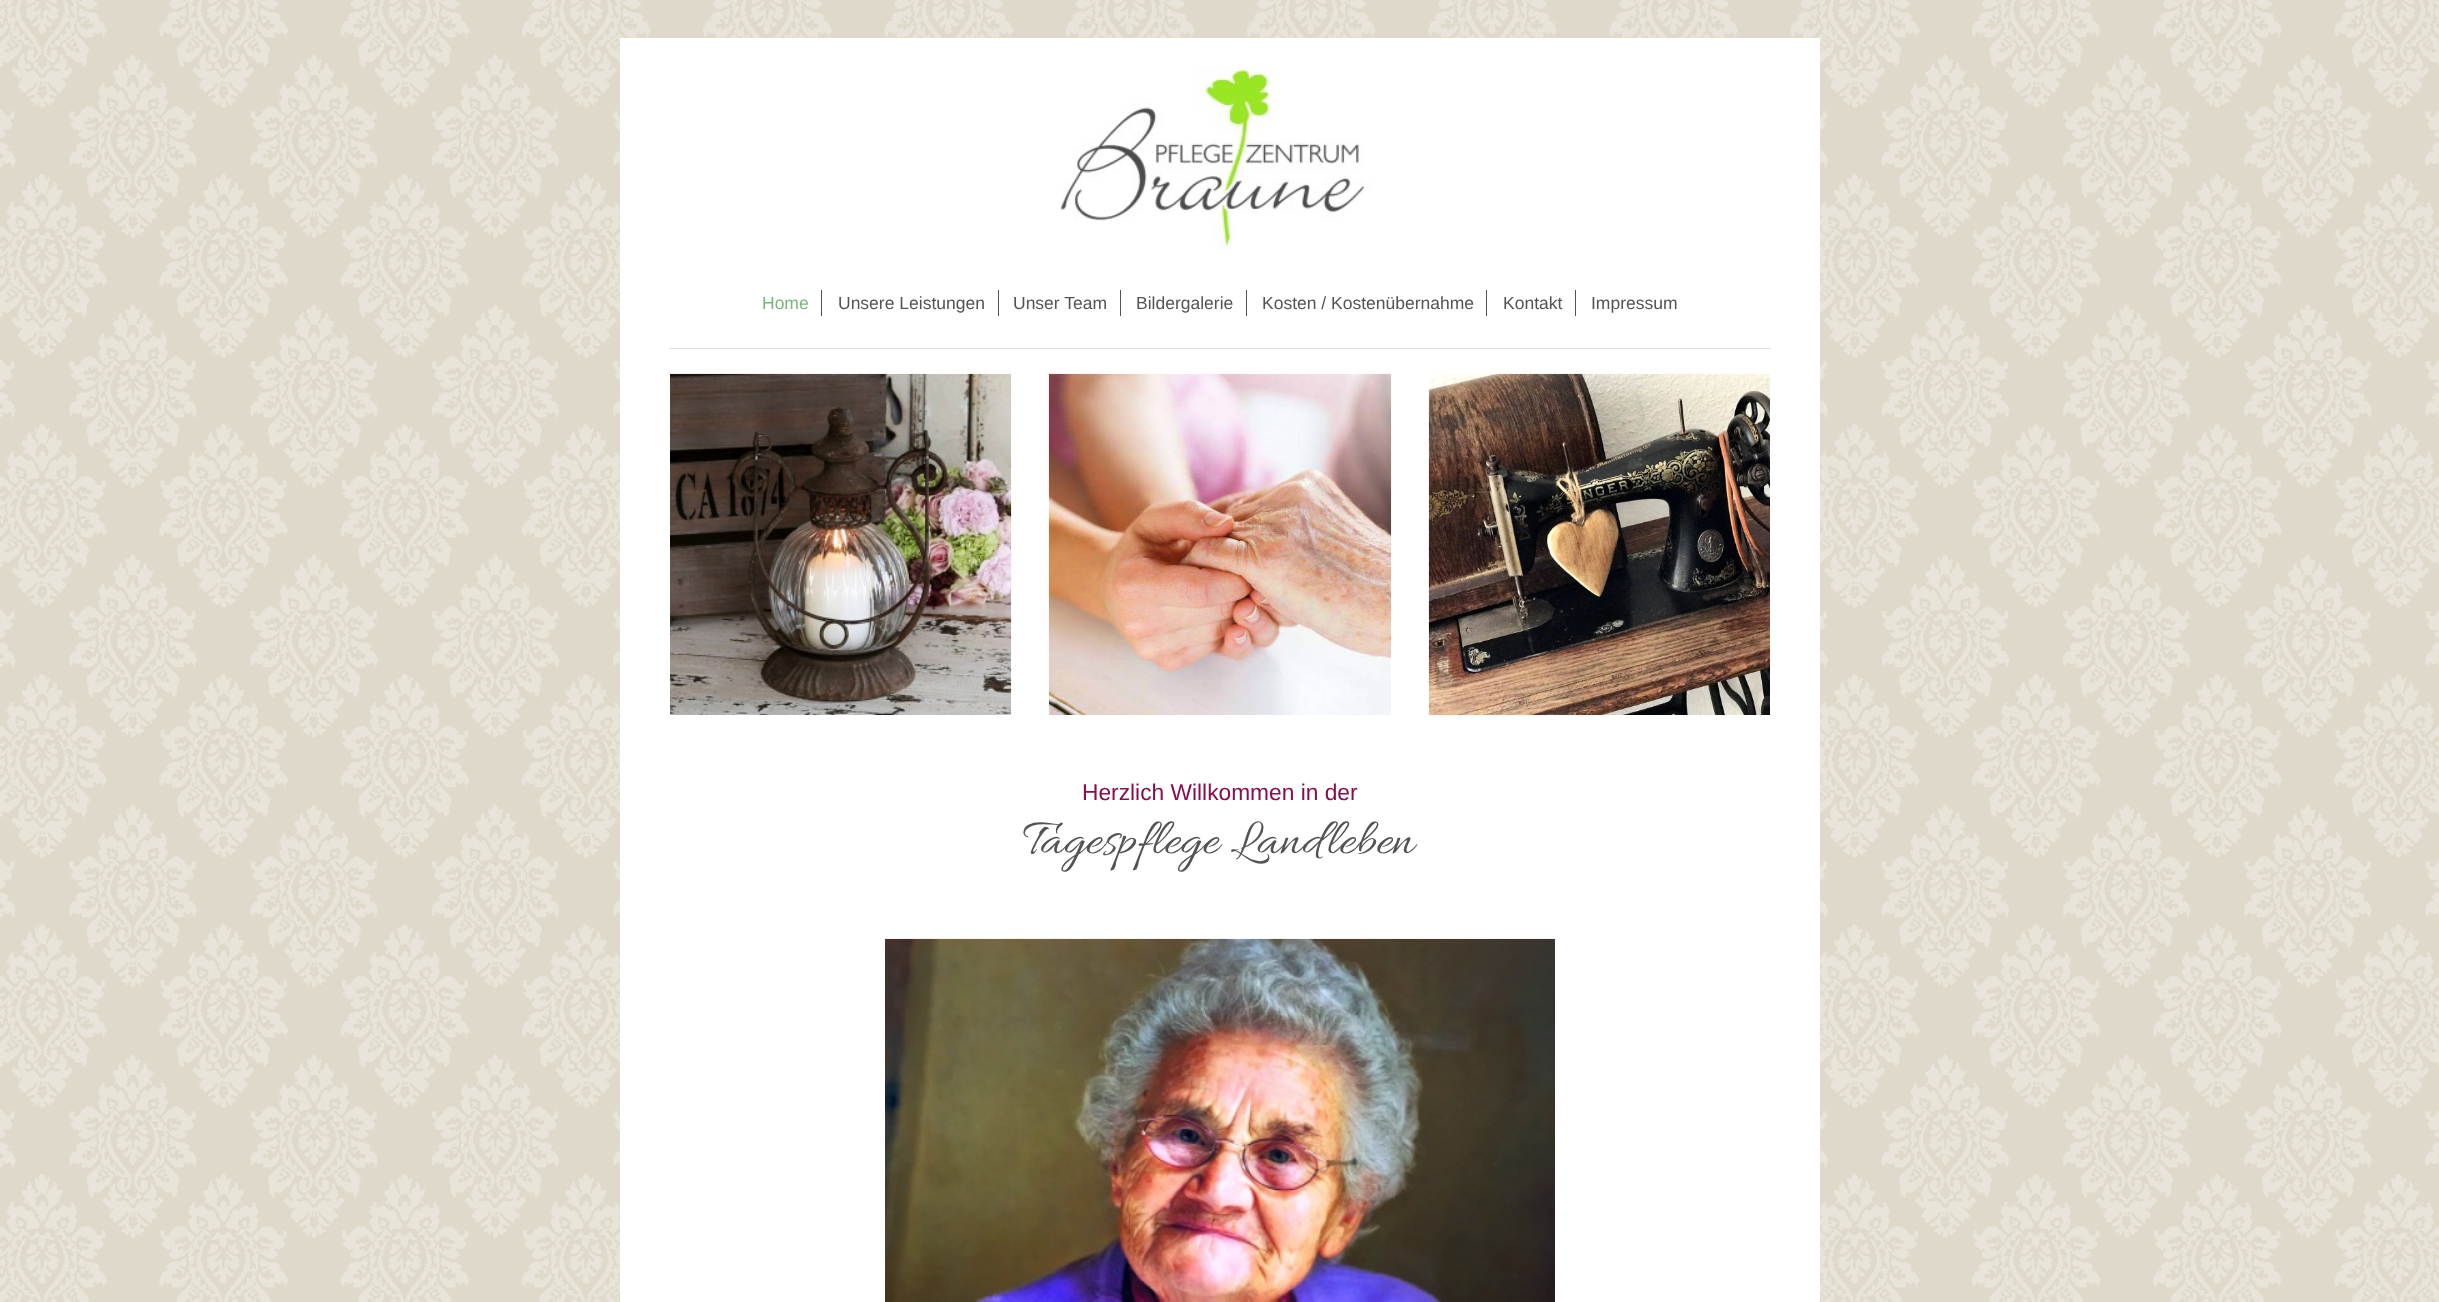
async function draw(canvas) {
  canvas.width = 2439
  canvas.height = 1302
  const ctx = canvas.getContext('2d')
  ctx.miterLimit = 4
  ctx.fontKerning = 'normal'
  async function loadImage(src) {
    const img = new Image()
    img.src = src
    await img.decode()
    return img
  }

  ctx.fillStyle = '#fff'
  ctx.fillRect(0, 0, 2439, 1302)
  ctx.drawImage(await loadImage('image0.png'), 0, 0, 2439, 1302)
  ctx.fillRect(620, 38, 1200, 1264)
  ctx.drawImage(await loadImage('image1.png'), 1058, 68, 313, 183)
  ctx.fillStyle = '#ddd'
  ctx.fillRect(670, 348, 1100, 1)
  ctx.fillStyle = '#535353'
  ctx.fillRect(821, 290, 1, 26)
  ctx.font = '17.5px Liberation Sans'
  ctx.fillStyle = '#77b777'
  ctx.fillText('Home', 762, 309)
  ctx.fillStyle = '#535353'
  ctx.fillRect(998, 290, 1, 26)
  ctx.fillText('Unsere Leistungen', 838, 309)
  ctx.fillRect(1120, 290, 1, 26)
  ctx.fillText('Unser Team', 1013, 309)
  ctx.fillRect(1246, 290, 1, 26)
  ctx.fillText('Bildergalerie', 1136, 309)
  ctx.fillRect(1486, 290, 1, 26)
  ctx.fillText('Kosten / Kostenübernahme', 1262, 309)
  ctx.fillRect(1575, 290, 1, 26)
  ctx.fillText('Kontakt', 1503, 309)
  ctx.fillText('Impressum', 1591, 309)
  ctx.drawImage(await loadImage('image2.png'), 670, 373, 342, 342)
  ctx.drawImage(await loadImage('image3.png'), 1048, 373, 344, 342)
  ctx.drawImage(await loadImage('image4.png'), 1428, 373, 342, 342)
  ctx.font = '22.75px Liberation Sans'
  ctx.fillStyle = '#880e4f'
  ctx.fillText('Herzlich Willkommen in der', 1082, 800)
  ctx.font = '52px Allura'
  ctx.fillStyle = '#535353'
  ctx.fillText('Tagespflege Landleben', 1023, 852)
  ctx.drawImage(await loadImage('image5.png'), 885, 938, 670, 364)
}

draw(document.querySelector('canvas'))
